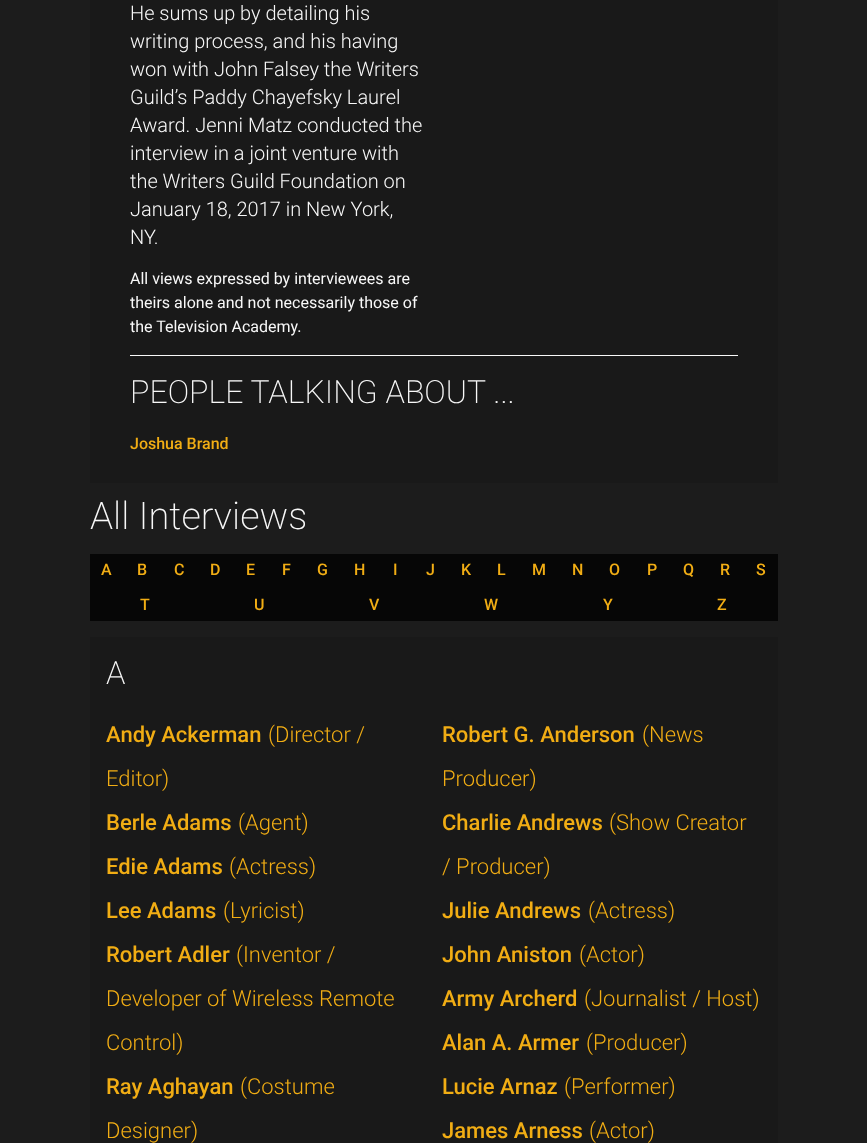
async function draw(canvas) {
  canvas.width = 867
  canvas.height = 1143
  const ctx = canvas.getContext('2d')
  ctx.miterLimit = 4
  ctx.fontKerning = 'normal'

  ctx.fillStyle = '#1c1c1c'
  ctx.fillRect(0, 0, 867, 1143)
  ctx.fillStyle = '#191919'
  ctx.fillRect(90, 0, 688, 483)
  ctx.font = '300 20px Roboto'
  ctx.fillStyle = '#f8f8f8'
  ctx.fillText('He sums up by detailing his', 130, 20)
  ctx.fillText('writing process, and his having', 130, 48)
  ctx.fillText('won with John Falsey the Writers', 130, 76)
  ctx.fillText('Guild’s Paddy Chayefsky Laurel', 130, 104)
  ctx.fillText('Award. Jenni Matz conducted the', 130, 132)
  ctx.fillText('interview in a joint venture with', 130, 160)
  ctx.fillText('the Writers Guild Foundation on', 130, 188)
  ctx.font = '300 20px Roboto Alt'
  ctx.fillText('January 18, 2017 in New York,', 130, 216)
  ctx.font = '300 20px Roboto'
  ctx.fillText('NY.', 130, 244)
  ctx.font = '16px Roboto'
  ctx.fillText('All views expressed by interviewees are', 130, 284)
  ctx.fillText('theirs alone and not necessarily those of', 130, 308)
  ctx.fillText('the Television Academy.', 130, 332)
  ctx.fillRect(130, 355, 608, 1)
  ctx.font = '200 32px Roboto'
  ctx.fillText('PEOPLE TALKING ABOUT ...', 130, 403)
  ctx.font = '500 16px Roboto'
  ctx.fillStyle = '#f1ad14'
  ctx.fillText('Joshua Brand', 130, 449)
  ctx.font = '200 38px Roboto'
  ctx.fillStyle = '#f8f8f8'
  ctx.fillText('All Interviews', 90, 529)
  ctx.fillStyle = '#060606'
  ctx.fillRect(90, 554, 688, 67)
  ctx.font = '500 16px Roboto'
  ctx.fillStyle = '#f1ad14'
  ctx.fillText('A', 101, 575)
  ctx.fillText('B', 137, 575)
  ctx.fillText('C', 174, 575)
  ctx.fillText('D', 210, 575)
  ctx.fillText('E', 246, 575)
  ctx.fillText('F', 282, 575)
  ctx.fillText('G', 317, 575)
  ctx.fillText('H', 354, 575)
  ctx.fillText('I', 393, 575)
  ctx.fillText('J', 426, 575)
  ctx.fillText('K', 461, 575)
  ctx.fillText('L', 497, 575)
  ctx.fillText('M', 532, 575)
  ctx.fillText('N', 572, 575)
  ctx.fillText('O', 609, 575)
  ctx.fillText('P', 647, 575)
  ctx.fillText('Q', 683, 575)
  ctx.fillText('R', 720, 575)
  ctx.fillText('S', 756, 575)
  ctx.fillText('T', 140, 610)
  ctx.fillText('U', 254, 610)
  ctx.fillText('V', 369, 610)
  ctx.fillText('W', 484, 610)
  ctx.fillText('Y', 603, 610)
  ctx.fillText('Z', 717, 610)
  ctx.fillStyle = '#191919'
  ctx.fillRect(90, 637, 688, 506)
  ctx.font = '200 32px Roboto'
  ctx.fillStyle = '#f8f8f8'
  ctx.fillText('A', 106, 684)
  ctx.font = '500 22px Roboto'
  ctx.fillStyle = '#f1ad14'
  ctx.fillText('Andy Ackerman', 106, 742)
  ctx.font = '300 22px Roboto'
  ctx.fillText('(Director /', 268, 742)
  ctx.fillText('Editor)', 106, 786)
  ctx.font = '500 22px Roboto'
  ctx.fillText('Robert G. Anderson', 442, 742)
  ctx.font = '300 22px Roboto'
  ctx.fillText('(News', 642, 742)
  ctx.fillText('Producer)', 442, 786)
  ctx.font = '500 22px Roboto'
  ctx.fillText('Berle Adams', 106, 830)
  ctx.font = '300 22px Roboto'
  ctx.fillText('(Agent)', 238, 830)
  ctx.font = '500 22px Roboto'
  ctx.fillText('Charlie Andrews', 442, 830)
  ctx.font = '300 22px Roboto'
  ctx.fillText('(Show Creator', 609, 830)
  ctx.fillText('/ Producer)', 442, 874)
  ctx.font = '500 22px Roboto'
  ctx.fillText('Edie Adams', 106, 874)
  ctx.font = '300 22px Roboto'
  ctx.fillText('(Actress)', 229, 874)
  ctx.font = '500 22px Roboto'
  ctx.fillText('Lee Adams', 106, 918)
  ctx.font = '300 22px Roboto'
  ctx.fillText('(Lyricist)', 223, 918)
  ctx.font = '500 22px Roboto'
  ctx.fillText('Julie Andrews', 442, 918)
  ctx.font = '300 22px Roboto'
  ctx.fillText('(Actress)', 588, 918)
  ctx.font = '500 22px Roboto'
  ctx.fillText('Robert Adler', 106, 962)
  ctx.font = '300 22px Roboto'
  ctx.fillText('(Inventor /', 236, 962)
  ctx.fillText('Developer of Wireless Remote', 106, 1006)
  ctx.fillText('Control)', 106, 1050)
  ctx.font = '500 22px Roboto'
  ctx.fillText('John Aniston', 442, 962)
  ctx.font = '300 22px Roboto'
  ctx.fillText('(Actor)', 579, 962)
  ctx.font = '500 22px Roboto'
  ctx.fillText('Army Archerd', 442, 1006)
  ctx.font = '300 22px Roboto'
  ctx.fillText('(Journalist / Host)', 584, 1006)
  ctx.font = '500 22px Roboto'
  ctx.fillText('Alan A. Armer', 442, 1050)
  ctx.font = '300 22px Roboto'
  ctx.fillText('(Producer)', 586, 1050)
  ctx.font = '500 22px Roboto'
  ctx.fillText('Ray Aghayan', 106, 1094)
  ctx.font = '300 22px Roboto'
  ctx.fillText('(Costume', 240, 1094)
  ctx.fillText('Designer)', 106, 1138)
  ctx.font = '500 22px Roboto'
  ctx.fillText('Lucie Arnaz', 442, 1094)
  ctx.font = '300 22px Roboto'
  ctx.fillText('(Performer)', 564, 1094)
  ctx.font = '500 22px Roboto'
  ctx.fillText('James Arness', 442, 1138)
  ctx.font = '300 22px Roboto'
  ctx.fillText('(Actor)', 589, 1138)
}

draw(document.querySelector('canvas'))
